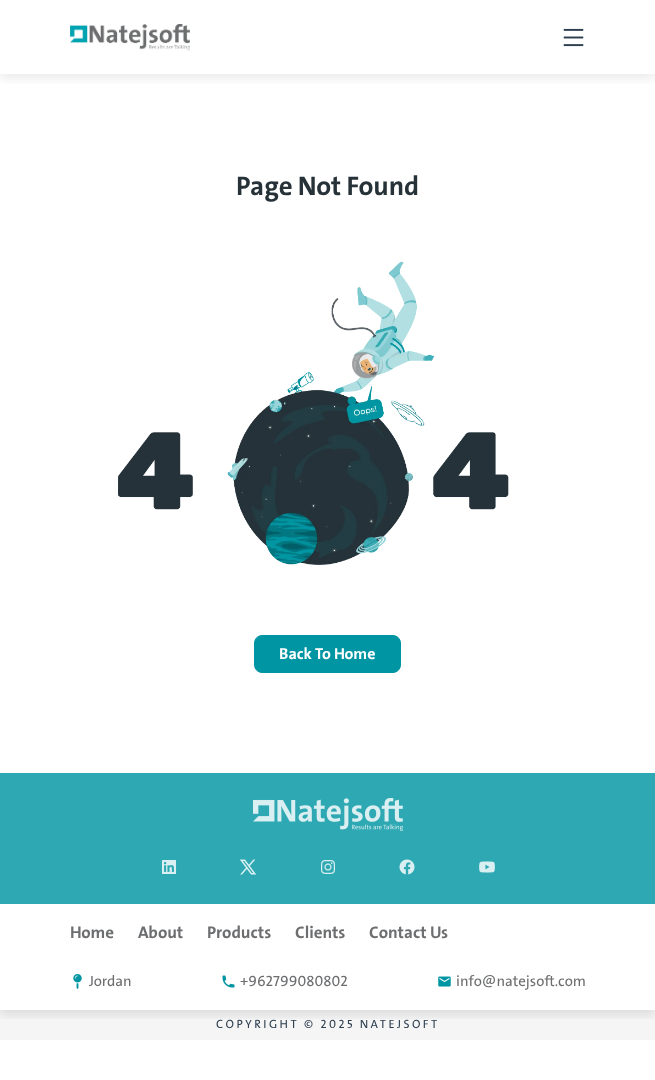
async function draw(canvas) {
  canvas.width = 655
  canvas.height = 1080
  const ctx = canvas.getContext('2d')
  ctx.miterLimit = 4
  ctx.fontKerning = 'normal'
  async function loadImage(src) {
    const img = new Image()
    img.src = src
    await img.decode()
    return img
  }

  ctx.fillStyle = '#fff'
  ctx.fillRect(0, 0, 655, 1080)
  ctx.save()
  ctx.beginPath()
  ctx.rect(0, 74, 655, 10)
  ctx.clip()
  ctx.fillStyle = '#4747471f'
  ctx.filter = 'blur(6px)'
  ctx.beginPath()
  ctx.rect(0, 4, 655, 74)
  ctx.fill()
  ctx.filter = 'none'
  ctx.restore()
  ctx.drawImage(await loadImage('image0.png'), 70, 24, 120, 27)
  ctx.drawImage(await loadImage('image1.png'), 563, 28, 21, 19)
  ctx.font = 'bold 27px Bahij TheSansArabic'
  ctx.fillStyle = '#263238'
  ctx.fillText('Page Not Found', 236, 195)
  ctx.drawImage(await loadImage('image2.png'), 118, 261, 391, 304)
  ctx.fillStyle = '#0095a2'
  ctx.beginPath()
  ctx.roundRect(254.5, 635.5, 146, 37, 7.5)
  ctx.fill()
  ctx.strokeStyle = '#0095a2'
  ctx.stroke()
  ctx.font = 'bold 16px Bahij TheSansArabic'
  ctx.fillStyle = '#fff'
  ctx.fillText('Back To Home', 279, 659)
  ctx.save()
  ctx.beginPath()
  ctx.rect(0, 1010, 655, 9)
  ctx.clip()
  ctx.fillStyle = '#0000001a'
  ctx.filter = 'blur(5px)'
  ctx.beginPath()
  ctx.rect(0, 909, 655, 106)
  ctx.fill()
  ctx.filter = 'none'
  ctx.restore()
  ctx.fillStyle = '#0095a2d1'
  ctx.fillRect(0, 773, 655, 131)
  ctx.drawImage(await loadImage('image3.png'), 253, 798, 150, 33)
  ctx.drawImage(await loadImage('image4.png'), 161, 860, 16, 14)
  ctx.drawImage(await loadImage('image5.png'), 239, 859, 18, 16)
  ctx.drawImage(await loadImage('image6.png'), 321, 860, 14, 14)
  ctx.drawImage(await loadImage('image7.png'), 399, 859, 16, 16)
  ctx.drawImage(await loadImage('image8.png'), 479, 861, 16, 12)
  ctx.font = 'bold 17px Bahij TheSansArabic'
  ctx.fillStyle = '#6d6e70'
  ctx.fillText('Home', 70, 938)
  ctx.fillText('About', 138, 938)
  ctx.fillText('Products', 207, 938)
  ctx.fillText('Clients', 295, 938)
  ctx.fillText('Contact Us', 369, 938)
  ctx.drawImage(await loadImage('image9.png'), 73, 974, 9, 15)
  ctx.font = '500 15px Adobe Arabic'
  ctx.fillText('Jordan', 89, 986)
  ctx.drawImage(await loadImage('image10.png'), 222, 975, 13, 13)
  ctx.fillText('+962799080802', 240, 986)
  ctx.drawImage(await loadImage('image11.png'), 438, 976, 13, 11)
  ctx.fillText('info@natejsoft.com', 456, 986)
  ctx.fillStyle = '#6e6f7212'
  ctx.fillRect(0, 1010, 655, 30)
  ctx.letterSpacing = '2.5px'
  ctx.font = '500 12px Adobe Arabic'
  ctx.fillStyle = '#2d3e50'
  ctx.fillText('COPYRIGHT © 2025 NATEJSOFT', 216, 1028)
}

draw(document.querySelector('canvas'))
